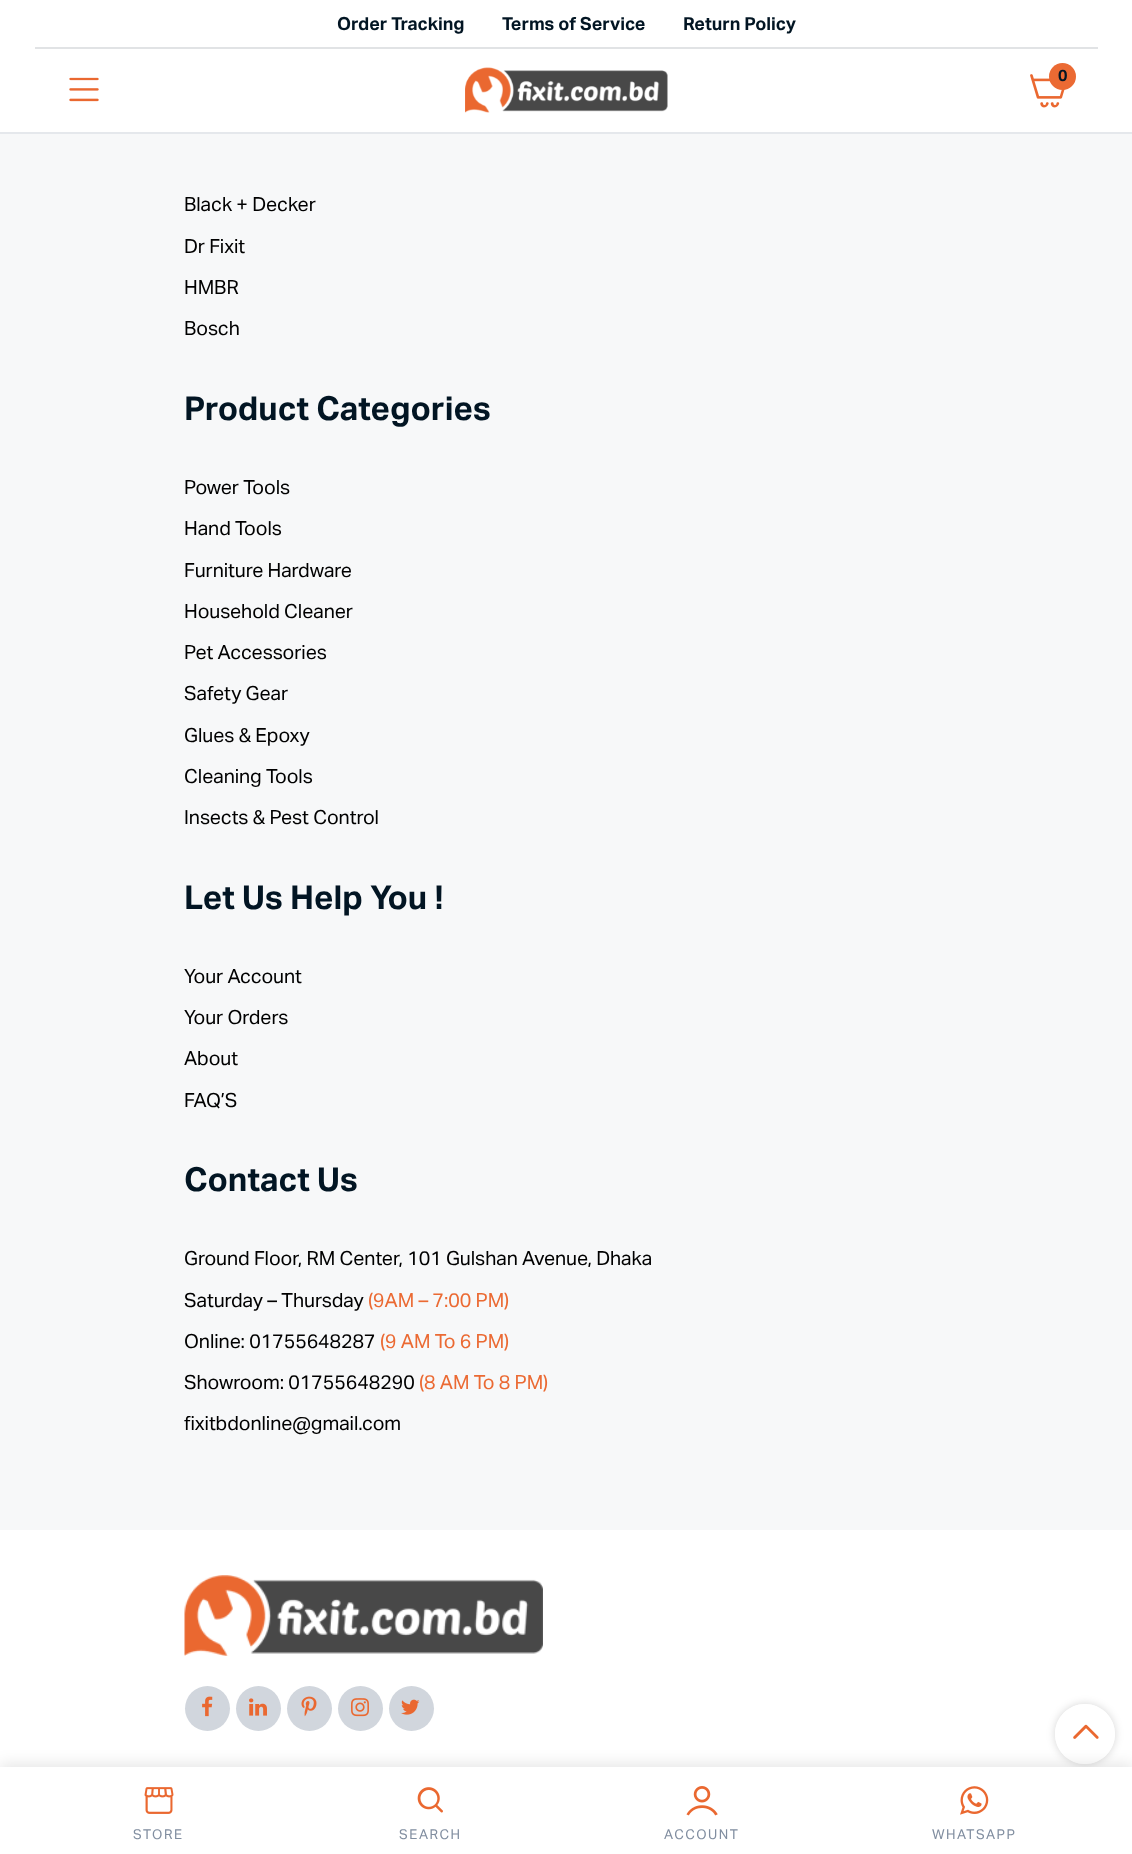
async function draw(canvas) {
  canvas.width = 1132
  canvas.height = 1854
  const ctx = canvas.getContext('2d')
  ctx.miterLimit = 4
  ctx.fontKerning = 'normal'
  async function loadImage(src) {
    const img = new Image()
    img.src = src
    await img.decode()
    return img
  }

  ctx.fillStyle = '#fff'
  ctx.fillRect(0, 0, 1132, 1854)
  ctx.fillStyle = '#e5e8ec'
  ctx.fillRect(0, 132, 1132, 2)
  ctx.letterSpacing = '-0.05px'
  ctx.font = 'bold 18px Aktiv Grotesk'
  ctx.fillStyle = '#021523'
  ctx.fillText('Order Tracking', 337, 30)
  ctx.fillText('Terms of Service', 502, 30)
  ctx.fillText('Return Policy', 683, 30)
  ctx.fillStyle = '#e1e3e5'
  ctx.fillRect(35, 47, 1063, 2)
  ctx.drawImage(await loadImage('image0.png'), 465, 67, 203, 46)
  ctx.drawImage(await loadImage('image1.png'), 1030, 74, 35, 34)
  ctx.fillStyle = '#eb6a33'
  ctx.beginPath()
  ctx.arc(1062.5, 76.5, 13.5, 0, 2 * Math.PI)
  ctx.fill()
  ctx.font = 'bold 16px Aktiv Grotesk'
  ctx.fillStyle = '#021523'
  ctx.fillText('0', 1058, 81)
  ctx.drawImage(await loadImage('image2.png'), 69, 77, 30, 25)
  ctx.fillStyle = '#f7f8f9'
  ctx.fillRect(0, 134, 1132, 1396)
  ctx.font = '19.5px Aktiv Grotesk'
  ctx.fillStyle = '#000'
  ctx.fillText('Black + Decker', 184, 211)
  ctx.fillText('Dr Fixit', 184, 253)
  ctx.fillText('HMBR', 184, 294)
  ctx.fillText('Bosch', 184, 335)
  ctx.letterSpacing = '0px'
  ctx.font = 'bold 33px Aktiv Grotesk'
  ctx.fillStyle = '#021523'
  ctx.fillText('Product Categories', 184, 420)
  ctx.letterSpacing = '-0.05px'
  ctx.font = '19.5px Aktiv Grotesk'
  ctx.fillStyle = '#000'
  ctx.fillText('Power Tools', 184, 494)
  ctx.fillText('Hand Tools', 184, 535)
  ctx.fillText('Furniture Hardware', 184, 577)
  ctx.fillText('Household Cleaner', 184, 618)
  ctx.fillText('Pet Accessories', 184, 659)
  ctx.fillText('Safety Gear', 184, 700)
  ctx.fillText('Glues & Epoxy', 184, 742)
  ctx.fillText('Cleaning Tools', 184, 783)
  ctx.fillText('Insects & Pest Control', 184, 824)
  ctx.letterSpacing = '0px'
  ctx.font = 'bold 33px Aktiv Grotesk'
  ctx.fillStyle = '#021523'
  ctx.fillText('Let Us Help You !', 184, 909)
  ctx.letterSpacing = '-0.05px'
  ctx.font = '19.5px Aktiv Grotesk'
  ctx.fillStyle = '#000'
  ctx.fillText('Your Account', 184, 983)
  ctx.fillText('Your Orders', 184, 1024)
  ctx.fillText('About', 184, 1065)
  ctx.fillText('FAQ’S', 184, 1107)
  ctx.letterSpacing = '0px'
  ctx.font = 'bold 33px Aktiv Grotesk'
  ctx.fillStyle = '#021523'
  ctx.fillText('Contact Us', 184, 1191)
  ctx.letterSpacing = '-0.05px'
  ctx.font = '19.5px Aktiv Grotesk'
  ctx.fillStyle = '#000'
  ctx.fillText('Ground Floor, RM Center, 101 Gulshan Avenue, Dhaka', 184, 1265)
  ctx.fillText('Saturday – Thursday', 184, 1307)
  ctx.fillStyle = '#eb6a33'
  ctx.fillText('(9AM – 7:00 PM)', 368, 1307)
  ctx.fillStyle = '#000'
  ctx.fillText('Online: 01755648287', 184, 1348)
  ctx.fillStyle = '#eb6a33'
  ctx.fillText('(9 AM To 6 PM)', 380, 1348)
  ctx.fillStyle = '#000'
  ctx.fillText('Showroom: 01755648290', 184, 1389)
  ctx.fillStyle = '#eb6a33'
  ctx.fillText('(8 AM To 8 PM)', 419, 1389)
  ctx.fillStyle = '#000'
  ctx.fillText('fixitbdonline@gmail.com', 184, 1430)
  ctx.drawImage(await loadImage('image3.png'), 184, 1575, 359, 81)
  ctx.fillStyle = '#d1d6dd'
  ctx.beginPath()
  ctx.arc(207.5, 1708.5, 22.5, 0, 2 * Math.PI)
  ctx.fill()
  ctx.drawImage(await loadImage('image4.png'), 202, 1696, 11, 21)
  ctx.beginPath()
  ctx.arc(258.5, 1708.5, 22.5, 0, 2 * Math.PI)
  ctx.fill()
  ctx.drawImage(await loadImage('image5.png'), 249, 1698, 18, 18)
  ctx.beginPath()
  ctx.arc(309.5, 1708.5, 22.5, 0, 2 * Math.PI)
  ctx.fill()
  ctx.drawImage(await loadImage('image6.png'), 301, 1696, 16, 21)
  ctx.beginPath()
  ctx.arc(360.5, 1708.5, 22.5, 0, 2 * Math.PI)
  ctx.fill()
  ctx.drawImage(await loadImage('image7.png'), 351, 1698, 18, 19)
  ctx.beginPath()
  ctx.arc(411.5, 1708.5, 22.5, 0, 2 * Math.PI)
  ctx.fill()
  ctx.drawImage(await loadImage('image8.png'), 401, 1699, 19, 16)
  ctx.save()
  ctx.beginPath()
  ctx.moveTo(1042, 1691)
  ctx.lineTo(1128, 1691)
  ctx.lineTo(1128, 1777)
  ctx.lineTo(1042, 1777)
  ctx.closePath()
  ctx.moveTo(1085, 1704)
  ctx.bezierCurveTo(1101.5, 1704, 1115, 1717.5, 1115, 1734)
  ctx.bezierCurveTo(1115, 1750.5, 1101.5, 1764, 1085, 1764)
  ctx.bezierCurveTo(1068.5, 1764, 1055, 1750.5, 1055, 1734)
  ctx.bezierCurveTo(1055, 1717.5, 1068.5, 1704, 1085, 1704)
  ctx.closePath()
  ctx.clip('evenodd')
  ctx.fillStyle = '#0000002b'
  ctx.filter = 'blur(4px)'
  ctx.beginPath()
  ctx.roundRect(1055, 1704, 60, 60, 30)
  ctx.fill()
  ctx.filter = 'none'
  ctx.restore()
  ctx.fillStyle = '#ffffffe6'
  ctx.beginPath()
  ctx.arc(1085, 1734, 30, 0, 2 * Math.PI)
  ctx.fill()
  ctx.drawImage(await loadImage('image9.png'), 1073, 1724, 26, 15)
  ctx.fillStyle = '#0000001a'
  ctx.filter = 'blur(7.5px)'
  ctx.beginPath()
  ctx.rect(0, 1764, 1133, 87)
  ctx.fill()
  ctx.filter = 'none'
  ctx.fillStyle = '#fff'
  ctx.fillRect(0, 1767, 1132, 87)
  ctx.drawImage(await loadImage('image10.png'), 144, 1787, 30, 27)
  ctx.letterSpacing = '1.5px'
  ctx.font = '13.5px Aktiv Grotesk'
  ctx.fillStyle = '#818ea0'
  ctx.fillText('STORE', 133, 1839)
  ctx.drawImage(await loadImage('image11.png'), 417, 1787, 26, 26)
  ctx.fillText('SEARCH', 399, 1839)
  ctx.drawImage(await loadImage('image12.png'), 686, 1786, 32, 30)
  ctx.fillText('ACCOUNT', 664, 1839)
  ctx.drawImage(await loadImage('image13.png'), 960, 1786, 29, 29)
  ctx.fillText('WHATSAPP', 932, 1839)
}

draw(document.querySelector('canvas'))
